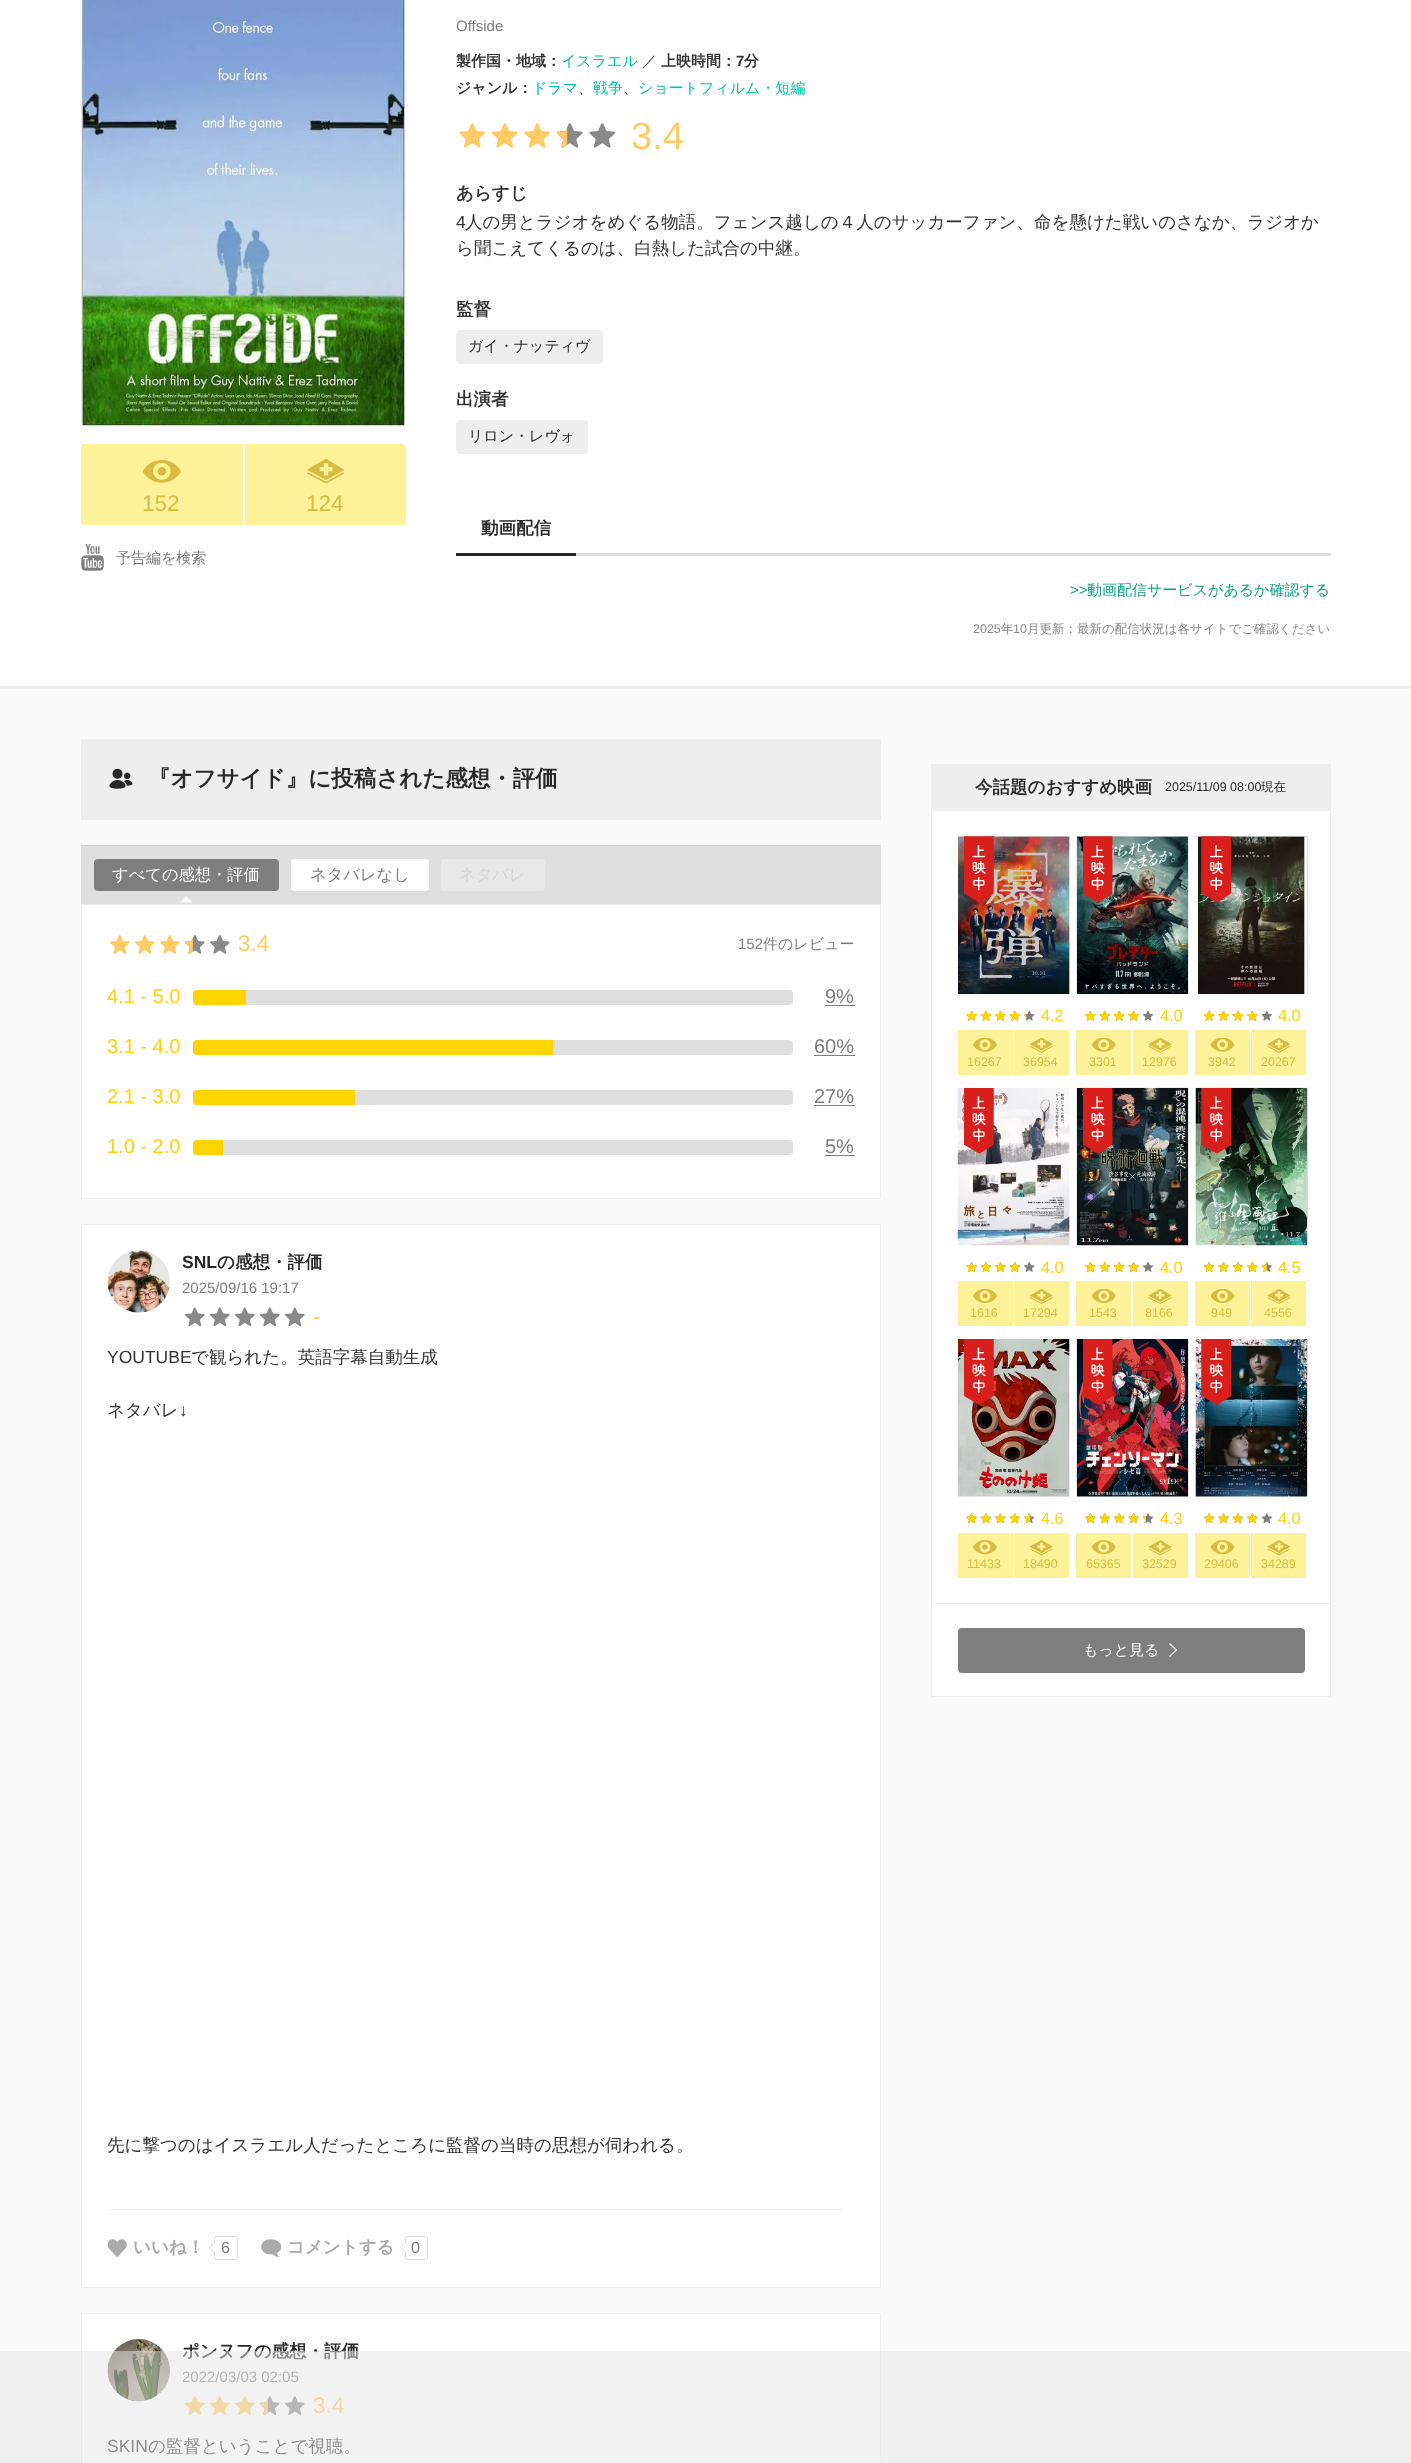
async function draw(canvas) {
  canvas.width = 1411
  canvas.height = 2463
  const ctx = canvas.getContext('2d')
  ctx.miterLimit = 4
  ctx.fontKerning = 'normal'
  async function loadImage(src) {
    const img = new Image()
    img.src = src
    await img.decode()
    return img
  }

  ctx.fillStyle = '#fafafa'
  ctx.fillRect(0, 0, 1411, 2463)
  ctx.fillStyle = '#fff'
  ctx.fillRect(0, 0, 1411, 686)
  ctx.fillStyle = '#eee'
  ctx.fillRect(0, 686, 1411, 3)
  ctx.fillStyle = '#d3d3d3'
  ctx.fillRect(81, 0, 1, 425)
  ctx.drawImage(await loadImage('image0.png'), 81, 0, 325, 426)
  ctx.fillStyle = '#fef298'
  ctx.beginPath()
  ctx.roundRect(81, 444, 162, 81, [4, 0, 0, 4])
  ctx.fill()
  ctx.drawImage(await loadImage('image1.png'), 143, 460, 38, 23)
  ctx.font = '22.5px Liberation Sans'
  ctx.fillStyle = '#d7bc43'
  ctx.fillText('152', 142, 511)
  ctx.fillStyle = '#fef298'
  ctx.beginPath()
  ctx.roundRect(245, 444, 161, 81, [0, 4, 4, 0])
  ctx.fill()
  ctx.drawImage(await loadImage('image2.png'), 306, 459, 39, 25)
  ctx.fillStyle = '#d7bc43'
  ctx.fillText('124', 306, 511)
  ctx.drawImage(await loadImage('image3.png'), 81, 544, 23, 27)
  ctx.font = '500 15px WenQuanYi Zen Hei'
  ctx.fillStyle = '#7e7e7e'
  ctx.fillText('予告編を検索', 116, 563)
  ctx.font = '15px Liberation Sans'
  ctx.fillText('Offside', 456, 31)
  ctx.font = 'bold 15px WenQuanYi Zen Hei'
  ctx.fillStyle = '#333'
  ctx.fillText('製作国・地域：', 456, 66)
  ctx.font = '500 15px WenQuanYi Zen Hei'
  ctx.fillStyle = '#00c4a5'
  ctx.fillText('イスラエル', 561, 66)
  ctx.fillStyle = '#333'
  ctx.fillText('／', 642, 66)
  ctx.font = 'bold 15px WenQuanYi Zen Hei'
  ctx.fillText('上映時間：', 661, 66)
  ctx.font = 'bold 15px Liberation Sans'
  ctx.fillText('7', 736, 66)
  ctx.font = 'bold 15px WenQuanYi Zen Hei'
  ctx.fillText('分', 744, 66)
  ctx.fillText('ジャンル：', 456, 93)
  ctx.font = '500 15px WenQuanYi Zen Hei'
  ctx.fillStyle = '#00c4a5'
  ctx.fillText('ドラマ', 532, 93)
  ctx.fillStyle = '#333'
  ctx.fillText('、', 578, 93)
  ctx.fillStyle = '#00c4a5'
  ctx.fillText('戦争', 593, 93)
  ctx.fillStyle = '#333'
  ctx.fillText('、', 623, 93)
  ctx.fillStyle = '#00c4a5'
  ctx.fillText('ショートフィルム・短編', 638, 93)
  ctx.drawImage(await loadImage('image4.png'), 459, 123, 26, 25)
  ctx.drawImage(await loadImage('image5.png'), 492, 123, 26, 25)
  ctx.drawImage(await loadImage('image4.png'), 524, 123, 26, 25)
  ctx.drawImage(await loadImage('image6.png'), 557, 123, 26, 25)
  ctx.drawImage(await loadImage('image7.png'), 589, 123, 26, 25)
  ctx.font = '38px Liberation Sans'
  ctx.fillStyle = '#ffcb62'
  ctx.fillText('3.4', 631, 149)
  ctx.font = 'bold 17.5px WenQuanYi Zen Hei'
  ctx.fillStyle = '#333'
  ctx.fillText('あらすじ', 456, 199)
  ctx.font = '17.5px Liberation Sans'
  ctx.fillText('4', 456, 228)
  ctx.font = '500 17.5px WenQuanYi Zen Hei'
  ctx.fillText('人の男とラジオをめぐる物語。フェンス越しの４人のサッカーファン、命を懸けた戦いのさなか、ラジオか', 465, 228)
  ctx.fillText('ら聞こえてくるのは、白熱した試合の中継。', 456, 254)
  ctx.font = 'bold 17.5px WenQuanYi Zen Hei'
  ctx.fillText('監督', 456, 315)
  ctx.fillStyle = '#eee'
  ctx.beginPath()
  ctx.roundRect(456, 330, 147, 34, 4)
  ctx.fill()
  ctx.font = '500 15px WenQuanYi Zen Hei'
  ctx.fillStyle = '#282828'
  ctx.fillText('ガイ・ナッティヴ', 468, 351)
  ctx.font = 'bold 17.5px WenQuanYi Zen Hei'
  ctx.fillStyle = '#333'
  ctx.fillText('出演者', 456, 405)
  ctx.fillStyle = '#eee'
  ctx.beginPath()
  ctx.roundRect(456, 420, 132, 34, 4)
  ctx.fill()
  ctx.font = '500 15px WenQuanYi Zen Hei'
  ctx.fillStyle = '#282828'
  ctx.fillText('リロン・レヴォ', 468, 441)
  ctx.fillRect(456, 553, 120, 3)
  ctx.font = 'bold 17.5px WenQuanYi Zen Hei'
  ctx.fillText('動画配信', 481, 534)
  ctx.fillStyle = '#ddd'
  ctx.fillRect(576, 553, 755, 3)
  ctx.font = '15px Liberation Sans'
  ctx.fillStyle = '#10a388'
  ctx.fillText('>>', 1070, 595)
  ctx.font = '500 15px WenQuanYi Zen Hei'
  ctx.fillText('動画配信サービスがあるか確認する', 1087, 595)
  ctx.font = '12.5px Liberation Sans'
  ctx.fillStyle = '#898989'
  ctx.fillText('2025', 973, 633)
  ctx.font = '500 12.5px WenQuanYi Zen Hei'
  ctx.fillText('年', 1001, 633)
  ctx.font = '12.5px Liberation Sans'
  ctx.fillText('10', 1013, 633)
  ctx.font = '500 12.5px WenQuanYi Zen Hei'
  ctx.fillText('月更新：最新の配信状況は各サイトでご確認ください', 1027, 633)
  ctx.fillStyle = '#eee'
  ctx.fillRect(81, 739, 800, 81)
  ctx.drawImage(await loadImage('image8.png'), 109, 768, 24, 21)
  ctx.font = 'bold 22.5px WenQuanYi Zen Hei'
  ctx.fillStyle = '#282828'
  ctx.fillText('『オフサイド』に投稿された感想・評価', 148, 786)
  ctx.fillStyle = '#dfdfdf'
  ctx.fillRect(81, 846, 800, 58)
  ctx.fillStyle = '#ccc'
  ctx.fillRect(81, 845, 800, 1)
  ctx.fillStyle = '#7e7e7e'
  ctx.beginPath()
  ctx.roundRect(94, 859, 185, 32, 4)
  ctx.fill()
  ctx.font = '500 16.25px WenQuanYi Zen Hei'
  ctx.fillStyle = '#fff'
  ctx.fillText('すべての感想・評価', 112, 880)
  ctx.fillStyle = '#fafafa'
  ctx.beginPath()
  ctx.moveTo(192.5, 902.5)
  ctx.lineTo(180, 902.5)
  ctx.lineTo(186, 896)
  ctx.closePath()
  ctx.fill()
  ctx.fillStyle = '#fff'
  ctx.beginPath()
  ctx.roundRect(291, 859, 138, 32, 4)
  ctx.fill()
  ctx.fillStyle = '#7e7e7e'
  ctx.fillText('ネタバレなし', 310, 880)
  ctx.fillStyle = '#e8e8e8'
  ctx.beginPath()
  ctx.roundRect(441, 859, 104, 32, 4)
  ctx.fill()
  ctx.fillStyle = '#d5d5d5'
  ctx.fillText('ネタバレ', 459, 880)
  ctx.fillStyle = '#fff'
  ctx.beginPath()
  ctx.rect(81.5, 904.5, 799, 294)
  ctx.fill()
  ctx.strokeStyle = '#eee'
  ctx.stroke()
  ctx.drawImage(await loadImage('image9.png'), 110, 935, 20, 19)
  ctx.drawImage(await loadImage('image9.png'), 135, 935, 20, 19)
  ctx.drawImage(await loadImage('image9.png'), 160, 935, 20, 19)
  ctx.drawImage(await loadImage('image10.png'), 185, 935, 20, 19)
  ctx.drawImage(await loadImage('image11.png'), 210, 935, 20, 19)
  ctx.font = '22.5px Liberation Sans'
  ctx.fillStyle = '#ffcb62'
  ctx.fillText('3.4', 238, 951)
  ctx.font = '15px Liberation Sans'
  ctx.fillStyle = '#7e7e7e'
  ctx.fillText('152', 738, 949)
  ctx.font = '500 15px WenQuanYi Zen Hei'
  ctx.fillText('件のレビュー', 763, 949)
  ctx.font = '20px Liberation Sans'
  ctx.fillStyle = '#ffd400'
  ctx.fillText('4.1 - 5.0', 107, 1003)
  ctx.fillStyle = '#dfdfdf'
  ctx.beginPath()
  ctx.roundRect(193, 990, 600, 15, 4)
  ctx.fill()
  ctx.fillStyle = '#ffd400'
  ctx.beginPath()
  ctx.roundRect(193, 990, 53, 15, [4, 0, 0, 4])
  ctx.fill()
  ctx.fillStyle = '#7e7e7e'
  ctx.fillText('9%', 825, 1003)
  ctx.fillRect(825, 1005, 30, 1)
  ctx.fillStyle = '#ffd400'
  ctx.fillText('3.1 - 4.0', 107, 1053)
  ctx.fillStyle = '#dfdfdf'
  ctx.beginPath()
  ctx.roundRect(193, 1040, 600, 15, 4)
  ctx.fill()
  ctx.fillStyle = '#ffd400'
  ctx.beginPath()
  ctx.roundRect(193, 1040, 360, 15, [4, 0, 0, 4])
  ctx.fill()
  ctx.fillStyle = '#7e7e7e'
  ctx.fillText('60%', 814, 1053)
  ctx.fillRect(814, 1055, 41, 1)
  ctx.fillStyle = '#ffd400'
  ctx.fillText('2.1 - 3.0', 107, 1103)
  ctx.fillStyle = '#dfdfdf'
  ctx.beginPath()
  ctx.roundRect(193, 1090, 600, 15, 4)
  ctx.fill()
  ctx.fillStyle = '#ffd400'
  ctx.beginPath()
  ctx.roundRect(193, 1090, 162, 15, [4, 0, 0, 4])
  ctx.fill()
  ctx.fillStyle = '#7e7e7e'
  ctx.fillText('27%', 814, 1103)
  ctx.fillRect(814, 1105, 41, 1)
  ctx.fillStyle = '#ffd400'
  ctx.fillText('1.0 - 2.0', 107, 1153)
  ctx.fillStyle = '#dfdfdf'
  ctx.beginPath()
  ctx.roundRect(193, 1140, 600, 15, 4)
  ctx.fill()
  ctx.fillStyle = '#ffd400'
  ctx.beginPath()
  ctx.roundRect(193, 1140, 30, 15, [4, 0, 0, 4])
  ctx.fill()
  ctx.fillStyle = '#7e7e7e'
  ctx.fillText('5%', 825, 1153)
  ctx.fillRect(825, 1155, 30, 1)
  ctx.fillStyle = '#fff'
  ctx.beginPath()
  ctx.rect(81.5, 1224.5, 799, 1063)
  ctx.fill()
  ctx.stroke()
  ctx.drawImage(await loadImage('image12.png'), 107, 1250, 63, 63)
  ctx.font = 'bold 17.5px Liberation Sans'
  ctx.fillStyle = '#282828'
  ctx.fillText('SNL', 182, 1268)
  ctx.font = 'bold 17.5px WenQuanYi Zen Hei'
  ctx.fillText('の感想・評価', 217, 1268)
  ctx.font = '15px Liberation Sans'
  ctx.fillStyle = '#7e7e7e'
  ctx.fillText('2025/09/16 19:17', 182, 1293)
  ctx.drawImage(await loadImage('image13.png'), 185, 1307, 20, 20)
  ctx.drawImage(await loadImage('image13.png'), 210, 1307, 20, 20)
  ctx.drawImage(await loadImage('image13.png'), 235, 1307, 20, 20)
  ctx.drawImage(await loadImage('image13.png'), 260, 1307, 20, 20)
  ctx.drawImage(await loadImage('image13.png'), 285, 1307, 20, 20)
  ctx.font = '22.5px Liberation Sans'
  ctx.fillStyle = '#ffcb62'
  ctx.fillText('-', 313, 1324)
  ctx.font = '17.5px Liberation Sans'
  ctx.fillStyle = '#333'
  ctx.fillText('YOUTUBE', 107, 1363)
  ctx.font = '500 17.5px WenQuanYi Zen Hei'
  ctx.fillText('で観られた。英語字幕自動生成', 191, 1363)
  ctx.fillText('ネタバレ', 107, 1416)
  ctx.font = '17.5px Liberation Sans'
  ctx.fillText('↓', 179, 1416)
  ctx.font = '500 17.5px WenQuanYi Zen Hei'
  ctx.fillText('先に撃つのはイスラエル人だったところに監督の当時の思想が伺われる。', 107, 2151)
  ctx.fillStyle = '#eee'
  ctx.fillRect(108, 2209, 735, 1)
  ctx.drawImage(await loadImage('image14.png'), 108, 2239, 19, 18)
  ctx.font = 'bold 17.5px WenQuanYi Zen Hei'
  ctx.fillStyle = '#aaa'
  ctx.fillText('いいね！', 133, 2253)
  ctx.beginPath()
  ctx.roundRect(214.5, 2236.5, 23, 23, 2)
  ctx.strokeStyle = '#ddd'
  ctx.stroke()
  ctx.fillStyle = '#ddd'
  ctx.beginPath()
  ctx.moveTo(215, 2241)
  ctx.lineTo(215, 2254)
  ctx.lineTo(209, 2247.5)
  ctx.closePath()
  ctx.fill()
  ctx.fillStyle = '#fff'
  ctx.beginPath()
  ctx.moveTo(216, 2241)
  ctx.lineTo(216, 2254)
  ctx.lineTo(210, 2247.5)
  ctx.closePath()
  ctx.fill()
  ctx.font = '16.25px Liberation Sans'
  ctx.fillStyle = '#7e7e7e'
  ctx.fillText('6', 221, 2253)
  ctx.drawImage(await loadImage('image15.png'), 261, 2239, 20, 18)
  ctx.font = 'bold 17.5px WenQuanYi Zen Hei'
  ctx.fillStyle = '#aaa'
  ctx.fillText('コメントする', 287, 2253)
  ctx.beginPath()
  ctx.roundRect(405.5, 2236.5, 22, 23, 2)
  ctx.stroke()
  ctx.fillStyle = '#ddd'
  ctx.beginPath()
  ctx.moveTo(406, 2241)
  ctx.lineTo(406, 2254)
  ctx.lineTo(400, 2247.5)
  ctx.closePath()
  ctx.fill()
  ctx.fillStyle = '#fff'
  ctx.beginPath()
  ctx.moveTo(407.5, 2241)
  ctx.lineTo(407.5, 2254)
  ctx.lineTo(401, 2247.5)
  ctx.closePath()
  ctx.fill()
  ctx.font = '16.25px Liberation Sans'
  ctx.fillStyle = '#7e7e7e'
  ctx.fillText('0', 411, 2253)
  ctx.fillStyle = '#fff'
  ctx.beginPath()
  ctx.rect(81.5, 2313.5, 799, 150)
  ctx.fill()
  ctx.strokeStyle = '#eee'
  ctx.stroke()
  ctx.drawImage(await loadImage('image16.png'), 107, 2339, 63, 63)
  ctx.font = 'bold 17.5px WenQuanYi Zen Hei'
  ctx.fillStyle = '#282828'
  ctx.fillText('ポンヌフの感想・評価', 182, 2357)
  ctx.font = '15px Liberation Sans'
  ctx.fillStyle = '#7e7e7e'
  ctx.fillText('2022/03/03 02:05', 182, 2382)
  ctx.drawImage(await loadImage('image17.png'), 185, 2396, 20, 19)
  ctx.drawImage(await loadImage('image17.png'), 210, 2396, 20, 19)
  ctx.drawImage(await loadImage('image17.png'), 235, 2396, 20, 19)
  ctx.drawImage(await loadImage('image18.png'), 260, 2396, 20, 19)
  ctx.drawImage(await loadImage('image19.png'), 285, 2396, 20, 19)
  ctx.font = '22.5px Liberation Sans'
  ctx.fillStyle = '#ffcb62'
  ctx.fillText('3.4', 313, 2413)
  ctx.font = '17.5px Liberation Sans'
  ctx.fillStyle = '#333'
  ctx.fillText('SKIN', 107, 2452)
  ctx.font = '500 17.5px WenQuanYi Zen Hei'
  ctx.fillText('の監督ということで視聴。', 148, 2452)
  ctx.fillStyle = '#eee'
  ctx.fillRect(931, 764, 400, 46)
  ctx.font = 'bold 17.5px WenQuanYi Zen Hei'
  ctx.fillStyle = '#282828'
  ctx.fillText('今話題のおすすめ映画', 975, 793)
  ctx.font = '12.5px Liberation Sans'
  ctx.fillText('2025/11/09 08:00', 1165, 791)
  ctx.font = '500 12.5px WenQuanYi Zen Hei'
  ctx.fillText('現在', 1261, 791)
  ctx.fillStyle = '#fff'
  ctx.beginPath()
  ctx.rect(931.5, 810.5, 399, 793)
  ctx.fill()
  ctx.stroke()
  ctx.fillStyle = '#d3d3d3'
  ctx.fillRect(1069, 836, 1, 1)
  ctx.drawImage(await loadImage('image20.png'), 958, 836, 111, 1)
  ctx.drawImage(await loadImage('image21.png'), 957, 836, 113, 158)
  ctx.drawImage(await loadImage('image22.png'), 964, 836, 30, 67)
  ctx.drawImage(await loadImage('image23.png'), 966, 1010, 69, 11)
  ctx.drawImage(await loadImage('image24.png'), 966, 1010, 61, 11)
  ctx.font = '16.25px Liberation Sans'
  ctx.fillStyle = '#ffd400'
  ctx.fillText('4.2', 1041, 1021)
  ctx.fillStyle = '#fef298'
  ctx.fillRect(958, 1030, 55, 45)
  ctx.drawImage(await loadImage('image25.png'), 973, 1038, 24, 14)
  ctx.font = '12.5px Liberation Sans'
  ctx.fillStyle = '#d7bc43'
  ctx.fillText('16267', 967, 1066)
  ctx.fillStyle = '#fef298'
  ctx.fillRect(1014, 1030, 55, 45)
  ctx.drawImage(await loadImage('image26.png'), 1029, 1038, 24, 15)
  ctx.fillStyle = '#d7bc43'
  ctx.fillText('36954', 1023, 1066)
  ctx.fillStyle = '#d3d3d3'
  ctx.fillRect(1076, 836, 113, 158)
  ctx.drawImage(await loadImage('image20.png'), 1077, 836, 111, 1)
  ctx.drawImage(await loadImage('image27.png'), 1076, 836, 113, 158)
  ctx.drawImage(await loadImage('image28.png'), 1083, 836, 30, 67)
  ctx.drawImage(await loadImage('image29.png'), 1085, 1010, 69, 11)
  ctx.drawImage(await loadImage('image30.png'), 1085, 1010, 54, 11)
  ctx.font = '16.25px Liberation Sans'
  ctx.fillStyle = '#ffd400'
  ctx.fillText('4.0', 1160, 1021)
  ctx.fillStyle = '#fef298'
  ctx.fillRect(1076, 1030, 55, 45)
  ctx.drawImage(await loadImage('image31.png'), 1091, 1038, 25, 14)
  ctx.font = '12.5px Liberation Sans'
  ctx.fillStyle = '#d7bc43'
  ctx.fillText('3301', 1089, 1066)
  ctx.fillStyle = '#fef298'
  ctx.fillRect(1133, 1030, 55, 45)
  ctx.drawImage(await loadImage('image32.png'), 1148, 1038, 24, 15)
  ctx.fillStyle = '#d7bc43'
  ctx.fillText('12976', 1142, 1066)
  ctx.fillStyle = '#d3d3d3'
  ctx.fillRect(1195, 836, 113, 158)
  ctx.drawImage(await loadImage('image20.png'), 1196, 836, 111, 1)
  ctx.drawImage(await loadImage('image33.png'), 1195, 836, 113, 158)
  ctx.drawImage(await loadImage('image34.png'), 1201, 836, 30, 67)
  ctx.drawImage(await loadImage('image35.png'), 1203, 1010, 69, 11)
  ctx.drawImage(await loadImage('image36.png'), 1203, 1010, 55, 11)
  ctx.font = '16.25px Liberation Sans'
  ctx.fillStyle = '#ffd400'
  ctx.fillText('4.0', 1278, 1021)
  ctx.fillStyle = '#fef298'
  ctx.fillRect(1195, 1030, 55, 45)
  ctx.drawImage(await loadImage('image37.png'), 1210, 1038, 25, 14)
  ctx.font = '12.5px Liberation Sans'
  ctx.fillStyle = '#d7bc43'
  ctx.fillText('3942', 1208, 1066)
  ctx.fillStyle = '#fef298'
  ctx.fillRect(1251, 1030, 55, 45)
  ctx.drawImage(await loadImage('image38.png'), 1267, 1038, 24, 15)
  ctx.fillStyle = '#d7bc43'
  ctx.fillText('20267', 1261, 1066)
  ctx.drawImage(await loadImage('image39.png'), 957, 1088, 113, 158)
  ctx.drawImage(await loadImage('image40.png'), 964, 1088, 30, 66)
  ctx.drawImage(await loadImage('image41.png'), 966, 1262, 69, 10)
  ctx.drawImage(await loadImage('image42.png'), 966, 1262, 54, 10)
  ctx.font = '16.25px Liberation Sans'
  ctx.fillStyle = '#ffd400'
  ctx.fillText('4.0', 1041, 1273)
  ctx.fillStyle = '#fef298'
  ctx.fillRect(958, 1281, 55, 45)
  ctx.drawImage(await loadImage('image43.png'), 973, 1289, 24, 14)
  ctx.font = '12.5px Liberation Sans'
  ctx.fillStyle = '#d7bc43'
  ctx.fillText('1616', 970, 1317)
  ctx.fillStyle = '#fef298'
  ctx.fillRect(1014, 1281, 55, 45)
  ctx.drawImage(await loadImage('image44.png'), 1029, 1289, 24, 16)
  ctx.fillStyle = '#d7bc43'
  ctx.fillText('17294', 1023, 1317)
  ctx.fillStyle = '#d3d3d3'
  ctx.fillRect(1076, 1088, 113, 157)
  ctx.drawImage(await loadImage('image45.png'), 1076, 1087, 113, 159)
  ctx.drawImage(await loadImage('image46.png'), 1083, 1088, 30, 66)
  ctx.drawImage(await loadImage('image47.png'), 1085, 1262, 69, 10)
  ctx.drawImage(await loadImage('image48.png'), 1085, 1262, 54, 10)
  ctx.font = '16.25px Liberation Sans'
  ctx.fillStyle = '#ffd400'
  ctx.fillText('4.0', 1160, 1273)
  ctx.fillStyle = '#fef298'
  ctx.fillRect(1076, 1281, 55, 45)
  ctx.drawImage(await loadImage('image49.png'), 1091, 1289, 25, 14)
  ctx.font = '12.5px Liberation Sans'
  ctx.fillStyle = '#d7bc43'
  ctx.fillText('1543', 1089, 1317)
  ctx.fillStyle = '#fef298'
  ctx.fillRect(1133, 1281, 55, 45)
  ctx.drawImage(await loadImage('image50.png'), 1148, 1289, 24, 16)
  ctx.fillStyle = '#d7bc43'
  ctx.fillText('8166', 1145, 1317)
  ctx.fillStyle = '#d3d3d3'
  ctx.fillRect(1307, 1088, 1, 157)
  ctx.drawImage(await loadImage('image51.png'), 1195, 1087, 113, 159)
  ctx.drawImage(await loadImage('image52.png'), 1201, 1088, 30, 66)
  ctx.drawImage(await loadImage('image54.png'), 1204, 1262, 68, 10)
  ctx.drawImage(await loadImage('image53.png'), 1203, 1262, 64, 10)
  ctx.font = '16.25px Liberation Sans'
  ctx.fillStyle = '#ffd400'
  ctx.fillText('4.5', 1278, 1273)
  ctx.fillStyle = '#fef298'
  ctx.fillRect(1195, 1281, 55, 45)
  ctx.drawImage(await loadImage('image55.png'), 1210, 1289, 25, 15)
  ctx.font = '12.5px Liberation Sans'
  ctx.fillStyle = '#d7bc43'
  ctx.fillText('949', 1211, 1317)
  ctx.fillStyle = '#fef298'
  ctx.fillRect(1251, 1281, 55, 45)
  ctx.drawImage(await loadImage('image56.png'), 1267, 1289, 24, 15)
  ctx.fillStyle = '#d7bc43'
  ctx.fillText('4556', 1264, 1317)
  ctx.drawImage(await loadImage('image57.png'), 957, 1339, 113, 158)
  ctx.drawImage(await loadImage('image58.png'), 964, 1339, 30, 66)
  ctx.drawImage(await loadImage('image59.png'), 966, 1513, 69, 11)
  ctx.drawImage(await loadImage('image60.png'), 966, 1513, 65, 11)
  ctx.font = '16.25px Liberation Sans'
  ctx.fillStyle = '#ffd400'
  ctx.fillText('4.6', 1041, 1524)
  ctx.fillStyle = '#fef298'
  ctx.fillRect(958, 1533, 55, 45)
  ctx.drawImage(await loadImage('image61.png'), 973, 1540, 24, 15)
  ctx.font = '12.5px Liberation Sans'
  ctx.fillStyle = '#d7bc43'
  ctx.fillText('11433', 967, 1568)
  ctx.fillStyle = '#fef298'
  ctx.fillRect(1014, 1533, 55, 45)
  ctx.drawImage(await loadImage('image62.png'), 1029, 1540, 24, 16)
  ctx.fillStyle = '#d7bc43'
  ctx.fillText('18490', 1023, 1568)
  ctx.fillStyle = '#d3d3d3'
  ctx.fillRect(1076, 1339, 113, 157)
  ctx.drawImage(await loadImage('image63.png'), 1076, 1339, 113, 158)
  ctx.drawImage(await loadImage('image64.png'), 1083, 1339, 30, 66)
  ctx.drawImage(await loadImage('image65.png'), 1085, 1513, 69, 11)
  ctx.drawImage(await loadImage('image66.png'), 1085, 1513, 61, 11)
  ctx.font = '16.25px Liberation Sans'
  ctx.fillStyle = '#ffd400'
  ctx.fillText('4.3', 1160, 1524)
  ctx.fillStyle = '#fef298'
  ctx.fillRect(1076, 1533, 55, 45)
  ctx.drawImage(await loadImage('image67.png'), 1091, 1540, 25, 15)
  ctx.font = '12.5px Liberation Sans'
  ctx.fillStyle = '#d7bc43'
  ctx.fillText('65365', 1086, 1568)
  ctx.fillStyle = '#fef298'
  ctx.fillRect(1133, 1533, 55, 45)
  ctx.drawImage(await loadImage('image68.png'), 1148, 1540, 24, 16)
  ctx.fillStyle = '#d7bc43'
  ctx.fillText('32529', 1142, 1568)
  ctx.fillStyle = '#d3d3d3'
  ctx.fillRect(1307, 1339, 1, 157)
  ctx.drawImage(await loadImage('image69.png'), 1195, 1339, 113, 158)
  ctx.drawImage(await loadImage('image70.png'), 1201, 1339, 30, 66)
  ctx.drawImage(await loadImage('image71.png'), 1203, 1513, 69, 11)
  ctx.drawImage(await loadImage('image72.png'), 1203, 1513, 55, 11)
  ctx.font = '16.25px Liberation Sans'
  ctx.fillStyle = '#ffd400'
  ctx.fillText('4.0', 1278, 1524)
  ctx.fillStyle = '#fef298'
  ctx.fillRect(1195, 1533, 55, 45)
  ctx.drawImage(await loadImage('image73.png'), 1210, 1540, 25, 15)
  ctx.font = '12.5px Liberation Sans'
  ctx.fillStyle = '#d7bc43'
  ctx.fillText('29406', 1204, 1568)
  ctx.fillStyle = '#fef298'
  ctx.fillRect(1251, 1533, 55, 45)
  ctx.drawImage(await loadImage('image74.png'), 1267, 1540, 24, 16)
  ctx.fillStyle = '#d7bc43'
  ctx.fillText('34289', 1261, 1568)
  ctx.fillStyle = '#fff'
  ctx.fillRect(933, 1604, 397, 92)
  ctx.fillStyle = '#eee'
  ctx.fillRect(1330, 1604, 1, 94)
  ctx.fillRect(931, 1696, 400, 1)
  ctx.fillRect(931, 1604, 1, 94)
  ctx.fillStyle = '#7e7e7e'
  ctx.beginPath()
  ctx.roundRect(958, 1628, 347, 45, 4)
  ctx.fill()
  ctx.font = '500 15px WenQuanYi Zen Hei'
  ctx.fillStyle = '#fff'
  ctx.fillText('もっと見る', 1083, 1655)
  ctx.beginPath()
  ctx.moveTo(1170, 1643)
  ctx.lineTo(1177, 1650)
  ctx.lineTo(1176.5, 1651)
  ctx.lineTo(1169, 1644)
  ctx.closePath()
  ctx.fill()
  ctx.beginPath()
  ctx.moveTo(1169, 1656)
  ctx.lineTo(1176.5, 1649)
  ctx.lineTo(1177, 1650)
  ctx.lineTo(1170, 1657)
  ctx.closePath()
  ctx.fill()
  ctx.fillStyle = '#e5e5e580'
  ctx.fillRect(0, 2351, 1411, 112)
}

draw(document.querySelector('canvas'))
